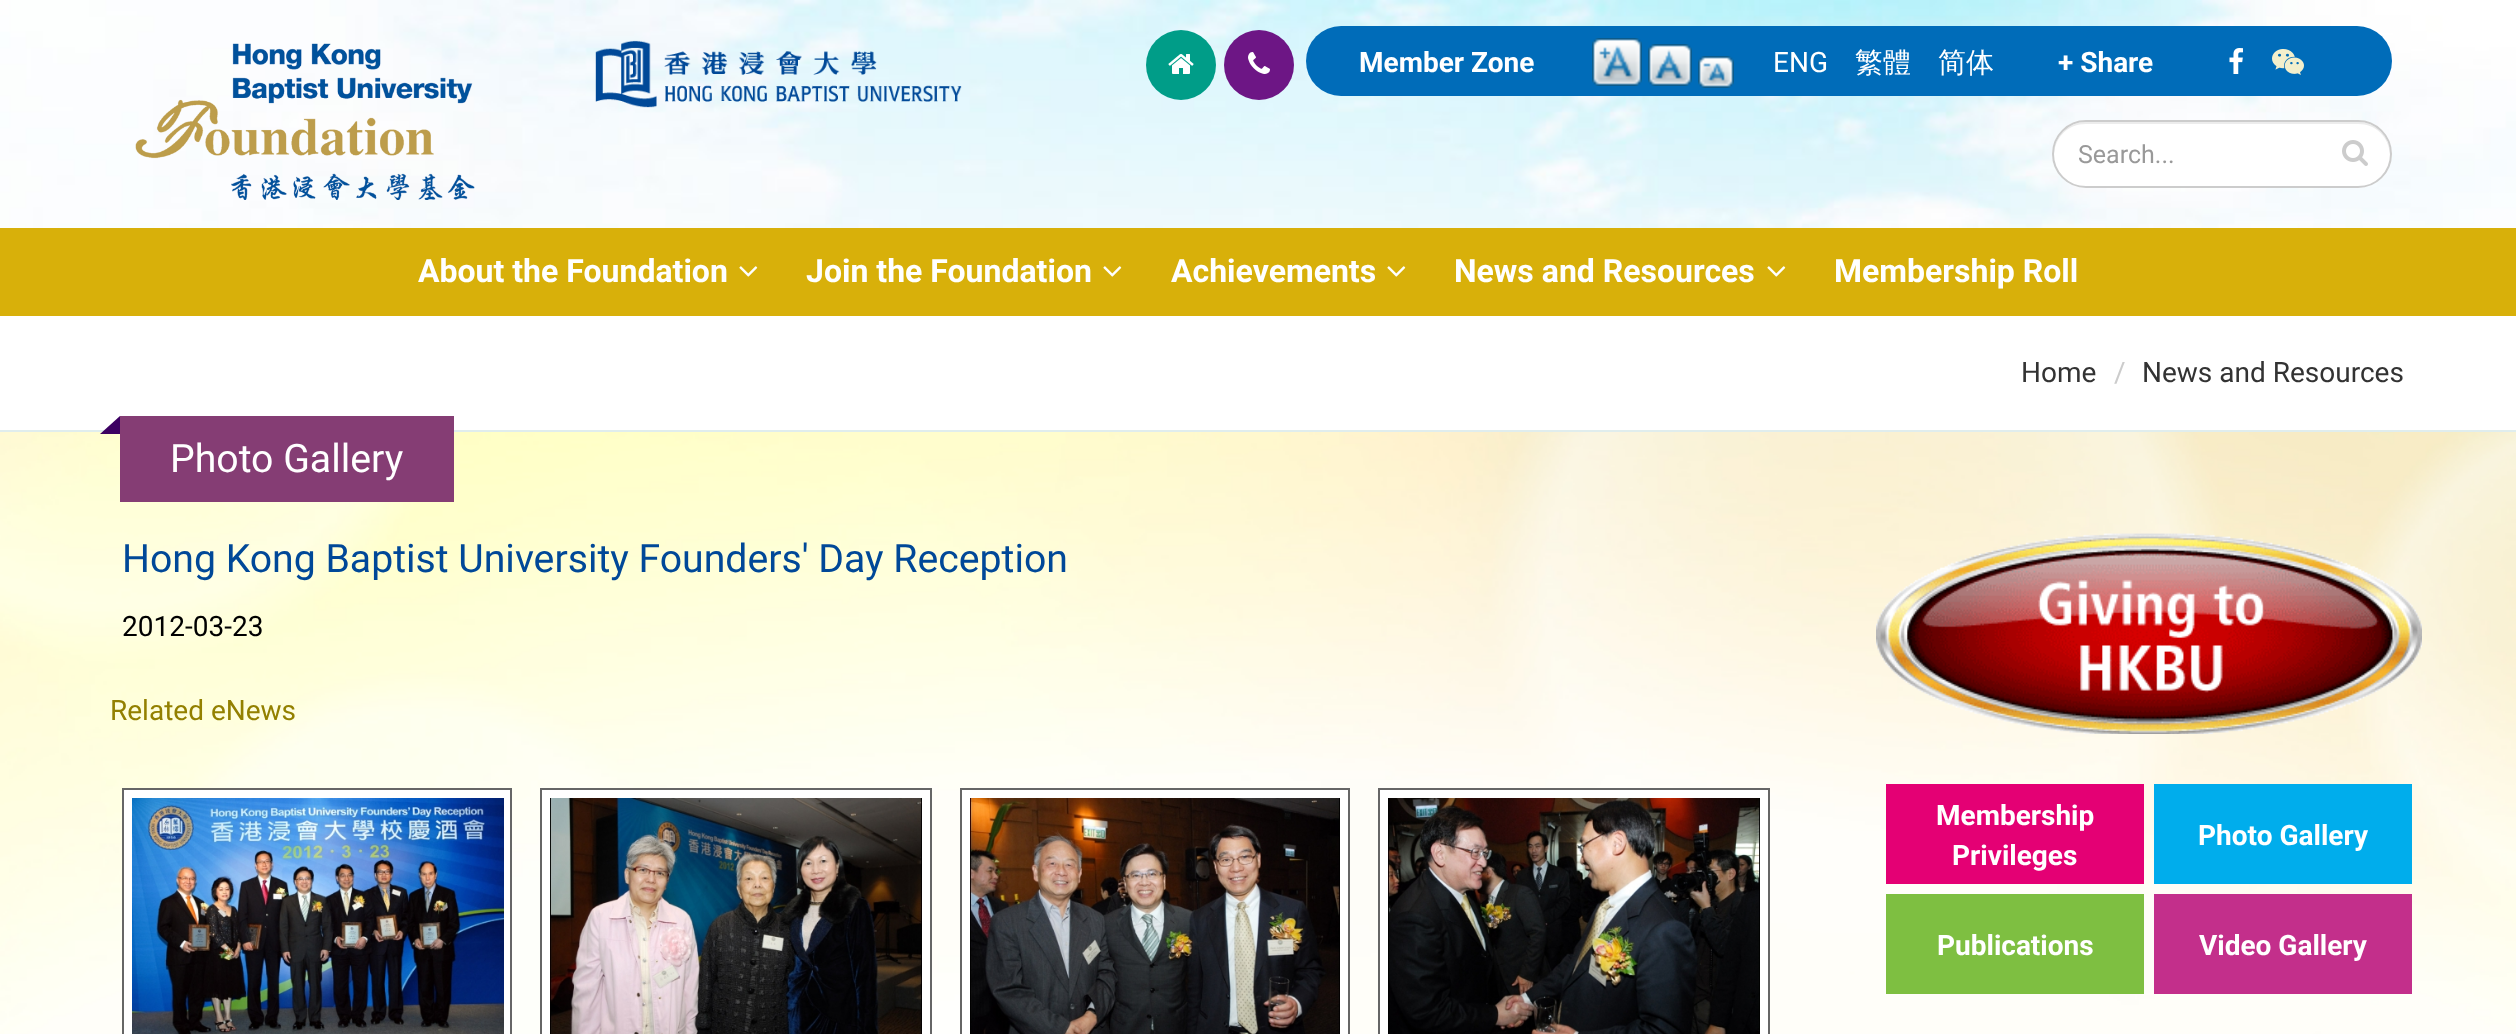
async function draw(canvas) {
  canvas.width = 2516
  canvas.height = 1034
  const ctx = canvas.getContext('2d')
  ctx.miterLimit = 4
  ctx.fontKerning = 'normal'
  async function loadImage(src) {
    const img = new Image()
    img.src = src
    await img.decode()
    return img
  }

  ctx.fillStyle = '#fff'
  ctx.fillRect(0, 0, 2516, 1034)
  ctx.drawImage(await loadImage('image0.png'), 0, 0, 2516, 228)
  ctx.drawImage(await loadImage('image1.png'), 135, 43, 340, 157)
  ctx.drawImage(await loadImage('image2.png'), 595, 40, 367, 68)
  ctx.fillStyle = '#009d88'
  ctx.beginPath()
  ctx.arc(1181, 65, 35, 0, 2 * Math.PI)
  ctx.fill()
  ctx.drawImage(await loadImage('image3.png'), 1168, 54, 26, 20)
  ctx.fillStyle = '#6d1685'
  ctx.beginPath()
  ctx.arc(1259, 65, 35, 0, 2 * Math.PI)
  ctx.fill()
  ctx.drawImage(await loadImage('image4.png'), 1248, 52, 22, 22)
  ctx.fillStyle = '#006cb9'
  ctx.beginPath()
  ctx.roundRect(1306, 26, 1086, 70, 35)
  ctx.fill()
  ctx.font = 'bold 28px Roboto'
  ctx.fillStyle = '#fff'
  ctx.fillText('Member Zone', 1359, 72)
  ctx.drawImage(await loadImage('image5.png'), 1592, 38, 50, 48)
  ctx.drawImage(await loadImage('image6.png'), 1648, 44, 44, 42)
  ctx.drawImage(await loadImage('image7.png'), 1698, 56, 36, 32)
  ctx.font = '28px Roboto'
  ctx.fillText('ENG', 1773, 72)
  ctx.font = '500 28px WenQuanYi Zen Hei'
  ctx.fillText('繁體', 1855, 72)
  ctx.fillText('简体', 1938, 72)
  ctx.font = 'bold 28px Roboto'
  ctx.fillText('+ Share', 2058, 72)
  ctx.drawImage(await loadImage('image8.png'), 2229, 48, 14, 26)
  ctx.drawImage(await loadImage('image9.png'), 2272, 49, 32, 26)
  ctx.beginPath()
  ctx.roundRect(2052, 120, 340, 68, 34)
  ctx.fill()
  ctx.fillStyle = '#ececec'
  ctx.beginPath()
  ctx.moveTo(2086, 124)
  ctx.lineTo(2358, 124)
  ctx.bezierCurveTo(2376, 124, 2389, 137, 2390, 155)
  ctx.lineTo(2390, 154)
  ctx.bezierCurveTo(2390, 136, 2376, 122, 2358, 122)
  ctx.lineTo(2086, 122)
  ctx.bezierCurveTo(2068, 122, 2054, 136, 2054, 154)
  ctx.lineTo(2054, 155)
  ctx.bezierCurveTo(2055, 137, 2068, 124, 2086, 124)
  ctx.closePath()
  ctx.fill()
  ctx.beginPath()
  ctx.roundRect(2053, 121, 338, 66, 33)
  ctx.strokeStyle = '#ccc'
  ctx.lineWidth = 2
  ctx.stroke()
  ctx.font = '25px Roboto'
  ctx.fillStyle = '#999'
  ctx.fillText('Search...', 2078, 163)
  ctx.drawImage(await loadImage('image10.png'), 2342, 140, 26, 26)
  ctx.fillStyle = '#d8b00a'
  ctx.fillRect(0, 228, 2516, 88)
  ctx.font = 'bold 32px Roboto'
  ctx.fillStyle = '#fff'
  ctx.fillText('About the Foundation', 418, 282)
  ctx.drawImage(await loadImage('image11.png'), 739, 266, 19, 11)
  ctx.fillText('Join the Foundation', 806, 282)
  ctx.drawImage(await loadImage('image11.png'), 1103, 266, 19, 11)
  ctx.fillText('Achievements', 1171, 282)
  ctx.drawImage(await loadImage('image11.png'), 1387, 266, 19, 11)
  ctx.fillText('News and Resources', 1454, 282)
  ctx.drawImage(await loadImage('image11.png'), 1767, 266, 19, 11)
  ctx.fillText('Membership Roll', 1834, 282)
  ctx.drawImage(await loadImage('image12.png'), 0, 432, 2516, 602)
  ctx.fillStyle = '#e0eded'
  ctx.fillRect(0, 430, 2516, 2)
  ctx.font = '28px Roboto'
  ctx.fillStyle = '#333'
  ctx.fillText('Home', 2021, 382)
  ctx.fillStyle = '#ccc'
  ctx.fillText('/', 2114, 382)
  ctx.fillStyle = '#333'
  ctx.fillText('News and Resources', 2142, 382)
  ctx.fillStyle = '#853d74'
  ctx.fillRect(120, 416, 334, 86)
  ctx.fillStyle = '#3c0062'
  ctx.beginPath()
  ctx.moveTo(120, 416)
  ctx.lineTo(120, 434)
  ctx.lineTo(100, 434)
  ctx.closePath()
  ctx.fill()
  ctx.font = '39.2px Roboto'
  ctx.fillStyle = '#fff'
  ctx.fillText('Photo Gallery', 170, 472)
  ctx.fillStyle = '#004898'
  ctx.fillText('Hong Kong Baptist University Founders\' Day Reception', 122, 572)
  ctx.font = '28px Roboto'
  ctx.fillStyle = '#000'
  ctx.fillText('2012-03-23', 122, 636)
  ctx.fillStyle = '#938000'
  ctx.fillText('Related eNews', 110, 720)
  ctx.fillStyle = '#fff'
  ctx.beginPath()
  ctx.rect(123, 789, 388, 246)
  ctx.fill()
  ctx.strokeStyle = '#666'
  ctx.stroke()
  ctx.drawImage(await loadImage('image13.png'), 132, 798, 372, 236)
  ctx.beginPath()
  ctx.rect(541, 789, 390, 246)
  ctx.fill()
  ctx.stroke()
  ctx.drawImage(await loadImage('image14.png'), 550, 798, 372, 236)
  ctx.beginPath()
  ctx.rect(961, 789, 388, 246)
  ctx.fill()
  ctx.stroke()
  ctx.drawImage(await loadImage('image15.png'), 970, 798, 370, 236)
  ctx.beginPath()
  ctx.rect(1379, 789, 390, 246)
  ctx.fill()
  ctx.stroke()
  ctx.drawImage(await loadImage('image16.png'), 1388, 798, 372, 236)
  ctx.drawImage(await loadImage('image17.png'), 1876, 533, 546, 201)
  ctx.fillStyle = '#e40074'
  ctx.fillRect(1886, 784, 258, 100)
  ctx.font = 'bold 28px Roboto'
  ctx.fillStyle = '#fff'
  ctx.fillText('Membership', 1936, 825)
  ctx.fillText('Privileges', 1952, 865)
  ctx.fillStyle = '#00adec'
  ctx.fillRect(2154, 784, 258, 100)
  ctx.fillStyle = '#fff'
  ctx.fillText('Photo Gallery', 2198, 845)
  ctx.fillStyle = '#7ebf41'
  ctx.fillRect(1886, 894, 258, 100)
  ctx.fillStyle = '#fff'
  ctx.fillText('Publications', 1937, 955)
  ctx.fillStyle = '#c32f8b'
  ctx.fillRect(2154, 894, 258, 100)
  ctx.fillStyle = '#fff'
  ctx.fillText('Video Gallery', 2199, 955)
}

draw(document.querySelector('canvas'))
